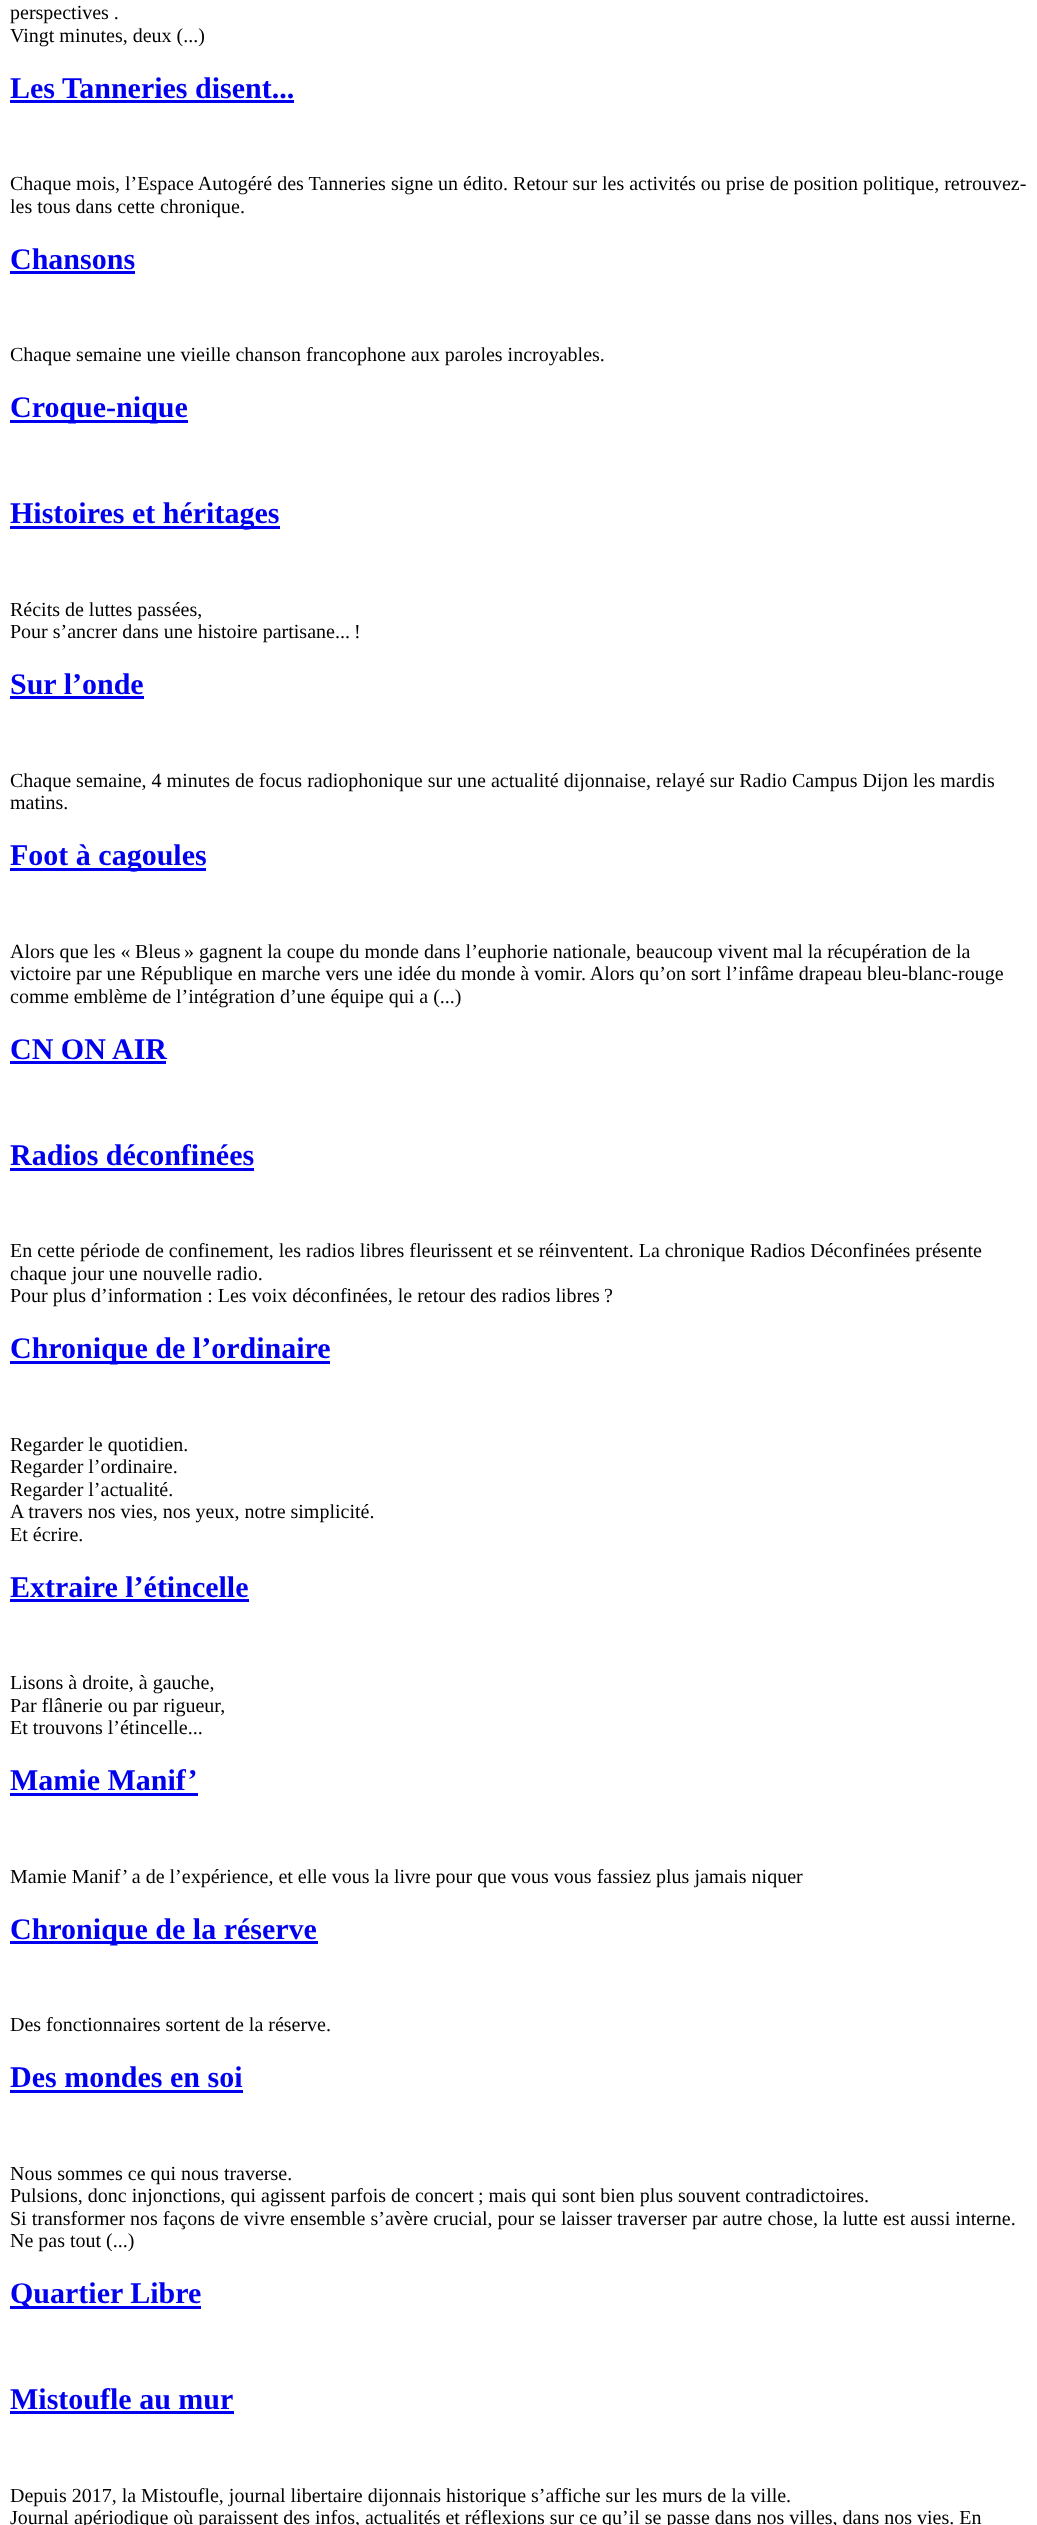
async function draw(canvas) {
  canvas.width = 1037
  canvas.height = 2525
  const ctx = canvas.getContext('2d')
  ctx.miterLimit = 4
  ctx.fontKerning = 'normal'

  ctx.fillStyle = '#fff'
  ctx.fillRect(0, 0, 1037, 2525)
  ctx.font = '20px Liberation Serif'
  ctx.fillStyle = '#000'
  ctx.fillText('perspectives .', 10, 19)
  ctx.fillText('Vingt minutes, deux (...)', 10, 42)
  ctx.font = 'bold 30px Liberation Serif'
  ctx.fillStyle = '#00e'
  ctx.fillText('Les Tanneries disent...', 10, 98)
  ctx.fillRect(10, 100, 284, 3)
  ctx.font = '20px Liberation Serif'
  ctx.fillStyle = '#000'
  ctx.fillText('Chaque mois, l’Espace Autogéré des Tanneries signe un édito. Retour sur les activités ou prise de position politique, retrouvez-', 10, 190)
  ctx.fillText('les tous dans cette chronique.', 10, 213)
  ctx.font = 'bold 30px Liberation Serif'
  ctx.fillStyle = '#00e'
  ctx.fillText('Chansons', 10, 269)
  ctx.fillRect(10, 271, 125, 3)
  ctx.font = '20px Liberation Serif'
  ctx.fillStyle = '#000'
  ctx.fillText('Chaque semaine une vieille chanson francophone aux paroles incroyables.', 10, 361)
  ctx.fillStyle = '#00e'
  ctx.fillRect(10, 420, 178, 3)
  ctx.font = 'bold 30px Liberation Serif'
  ctx.fillText('Croque-nique', 10, 417)
  ctx.fillRect(10, 526, 270, 3)
  ctx.fillText('Histoires et héritages', 10, 523)
  ctx.font = '20px Liberation Serif'
  ctx.fillStyle = '#000'
  ctx.fillText('Récits de luttes passées,', 10, 616)
  ctx.fillText('Pour s’ancrer dans une histoire partisane...', 10, 638)
  ctx.fillText('!', 354, 638)
  ctx.font = 'bold 30px Liberation Serif'
  ctx.fillStyle = '#00e'
  ctx.fillText('Sur l’onde', 10, 694)
  ctx.fillRect(10, 696, 134, 3)
  ctx.font = '20px Liberation Serif'
  ctx.fillStyle = '#000'
  ctx.fillText('Chaque semaine, 4 minutes de focus radiophonique sur une actualité dijonnaise, relayé sur Radio Campus Dijon les mardis', 10, 787)
  ctx.fillText('matins.', 10, 809)
  ctx.fillStyle = '#00e'
  ctx.fillRect(10, 868, 196, 3)
  ctx.font = 'bold 30px Liberation Serif'
  ctx.fillText('Foot à cagoules', 10, 865)
  ctx.font = '20px Liberation Serif'
  ctx.fillStyle = '#000'
  ctx.fillText('Alors que les «', 10, 958)
  ctx.fillText('Bleus', 135, 958)
  ctx.fillText('» gagnent la coupe du monde dans l’euphorie nationale, beaucoup vivent mal la récupération de la', 184, 958)
  ctx.fillText('victoire par une République en marche vers une idée du monde à vomir. Alors qu’on sort l’infâme drapeau bleu-blanc-rouge', 10, 980)
  ctx.fillText('comme emblème de l’intégration d’une équipe qui a (...)', 10, 1003)
  ctx.font = 'bold 30px Liberation Serif'
  ctx.fillStyle = '#00e'
  ctx.fillText('CN ON', 10, 1059)
  ctx.fillRect(10, 1061, 156, 3)
  ctx.fillText('AIR', 112, 1059)
  ctx.fillText('Radios déconfinées', 10, 1165)
  ctx.fillRect(10, 1168, 244, 3)
  ctx.font = '20px Liberation Serif'
  ctx.fillStyle = '#000'
  ctx.fillText('En cette période de confinement, les radios libres fleurissent et se réinventent. La chronique Radios Déconfinées présente', 10, 1257)
  ctx.fillText('chaque jour une nouvelle radio.', 10, 1280)
  ctx.fillText('Pour plus d’information : Les voix déconfinées, le retour des radios libres', 10, 1302)
  ctx.fillText('?', 604, 1302)
  ctx.fillStyle = '#00e'
  ctx.fillRect(10, 1361, 320, 3)
  ctx.font = 'bold 30px Liberation Serif'
  ctx.fillText('Chronique de l’ordinaire', 10, 1358)
  ctx.font = '20px Liberation Serif'
  ctx.fillStyle = '#000'
  ctx.fillText('Regarder le quotidien.', 10, 1451)
  ctx.fillText('Regarder l’ordinaire.', 10, 1473)
  ctx.fillText('Regarder l’actualité.', 10, 1496)
  ctx.fillText('A travers nos vies, nos yeux, notre simplicité.', 10, 1518)
  ctx.fillText('Et écrire.', 10, 1541)
  ctx.font = 'bold 30px Liberation Serif'
  ctx.fillStyle = '#00e'
  ctx.fillText('Extraire l’étincelle', 10, 1597)
  ctx.fillRect(10, 1599, 239, 3)
  ctx.font = '20px Liberation Serif'
  ctx.fillStyle = '#000'
  ctx.fillText('Lisons à droite, à gauche,', 10, 1689)
  ctx.fillText('Par flânerie ou par rigueur,', 10, 1712)
  ctx.fillText('Et trouvons l’étincelle...', 10, 1734)
  ctx.font = 'bold 30px Liberation Serif'
  ctx.fillStyle = '#00e'
  ctx.fillText('Mamie Manif’', 10, 1790)
  ctx.fillRect(10, 1793, 188, 3)
  ctx.font = '20px Liberation Serif'
  ctx.fillStyle = '#000'
  ctx.fillText('Mamie Manif’ a de l’expérience, et elle vous la livre pour que vous vous fassiez plus jamais niquer', 10, 1883)
  ctx.fillStyle = '#00e'
  ctx.fillRect(10, 1941, 308, 3)
  ctx.font = 'bold 30px Liberation Serif'
  ctx.fillText('Chronique de la réserve', 10, 1939)
  ctx.font = '20px Liberation Serif'
  ctx.fillStyle = '#000'
  ctx.fillText('Des fonctionnaires sortent de la réserve.', 10, 2031)
  ctx.font = 'bold 30px Liberation Serif'
  ctx.fillStyle = '#00e'
  ctx.fillText('Des mondes en soi', 10, 2087)
  ctx.fillRect(10, 2090, 233, 3)
  ctx.font = '20px Liberation Serif'
  ctx.fillStyle = '#000'
  ctx.fillText('Nous sommes ce qui nous traverse.', 10, 2180)
  ctx.fillText('Pulsions, donc injonctions, qui agissent parfois de concert', 10, 2202)
  ctx.fillText('; mais qui sont bien plus souvent contradictoires.', 478, 2202)
  ctx.fillText('Si transformer nos façons de vivre ensemble s’avère crucial, pour se laisser traverser par autre chose, la lutte est aussi interne.', 10, 2225)
  ctx.fillText('Ne pas tout (...)', 10, 2247)
  ctx.fillStyle = '#00e'
  ctx.fillRect(10, 2306, 191, 3)
  ctx.font = 'bold 30px Liberation Serif'
  ctx.fillText('Quartier Libre', 10, 2303)
  ctx.fillText('Mistoufle au mur', 10, 2409)
  ctx.fillRect(10, 2411, 224, 3)
  ctx.font = '20px Liberation Serif'
  ctx.fillStyle = '#000'
  ctx.fillText('Depuis 2017, la Mistoufle, journal libertaire dijonnais historique s’affiche sur les murs de la ville.', 10, 2502)
  ctx.fillText('Journal apériodique où paraissent des infos, actualités et réflexions sur ce qu’il se passe dans nos villes, dans nos vies. En', 10, 2524)
}

draw(document.querySelector('canvas'))
